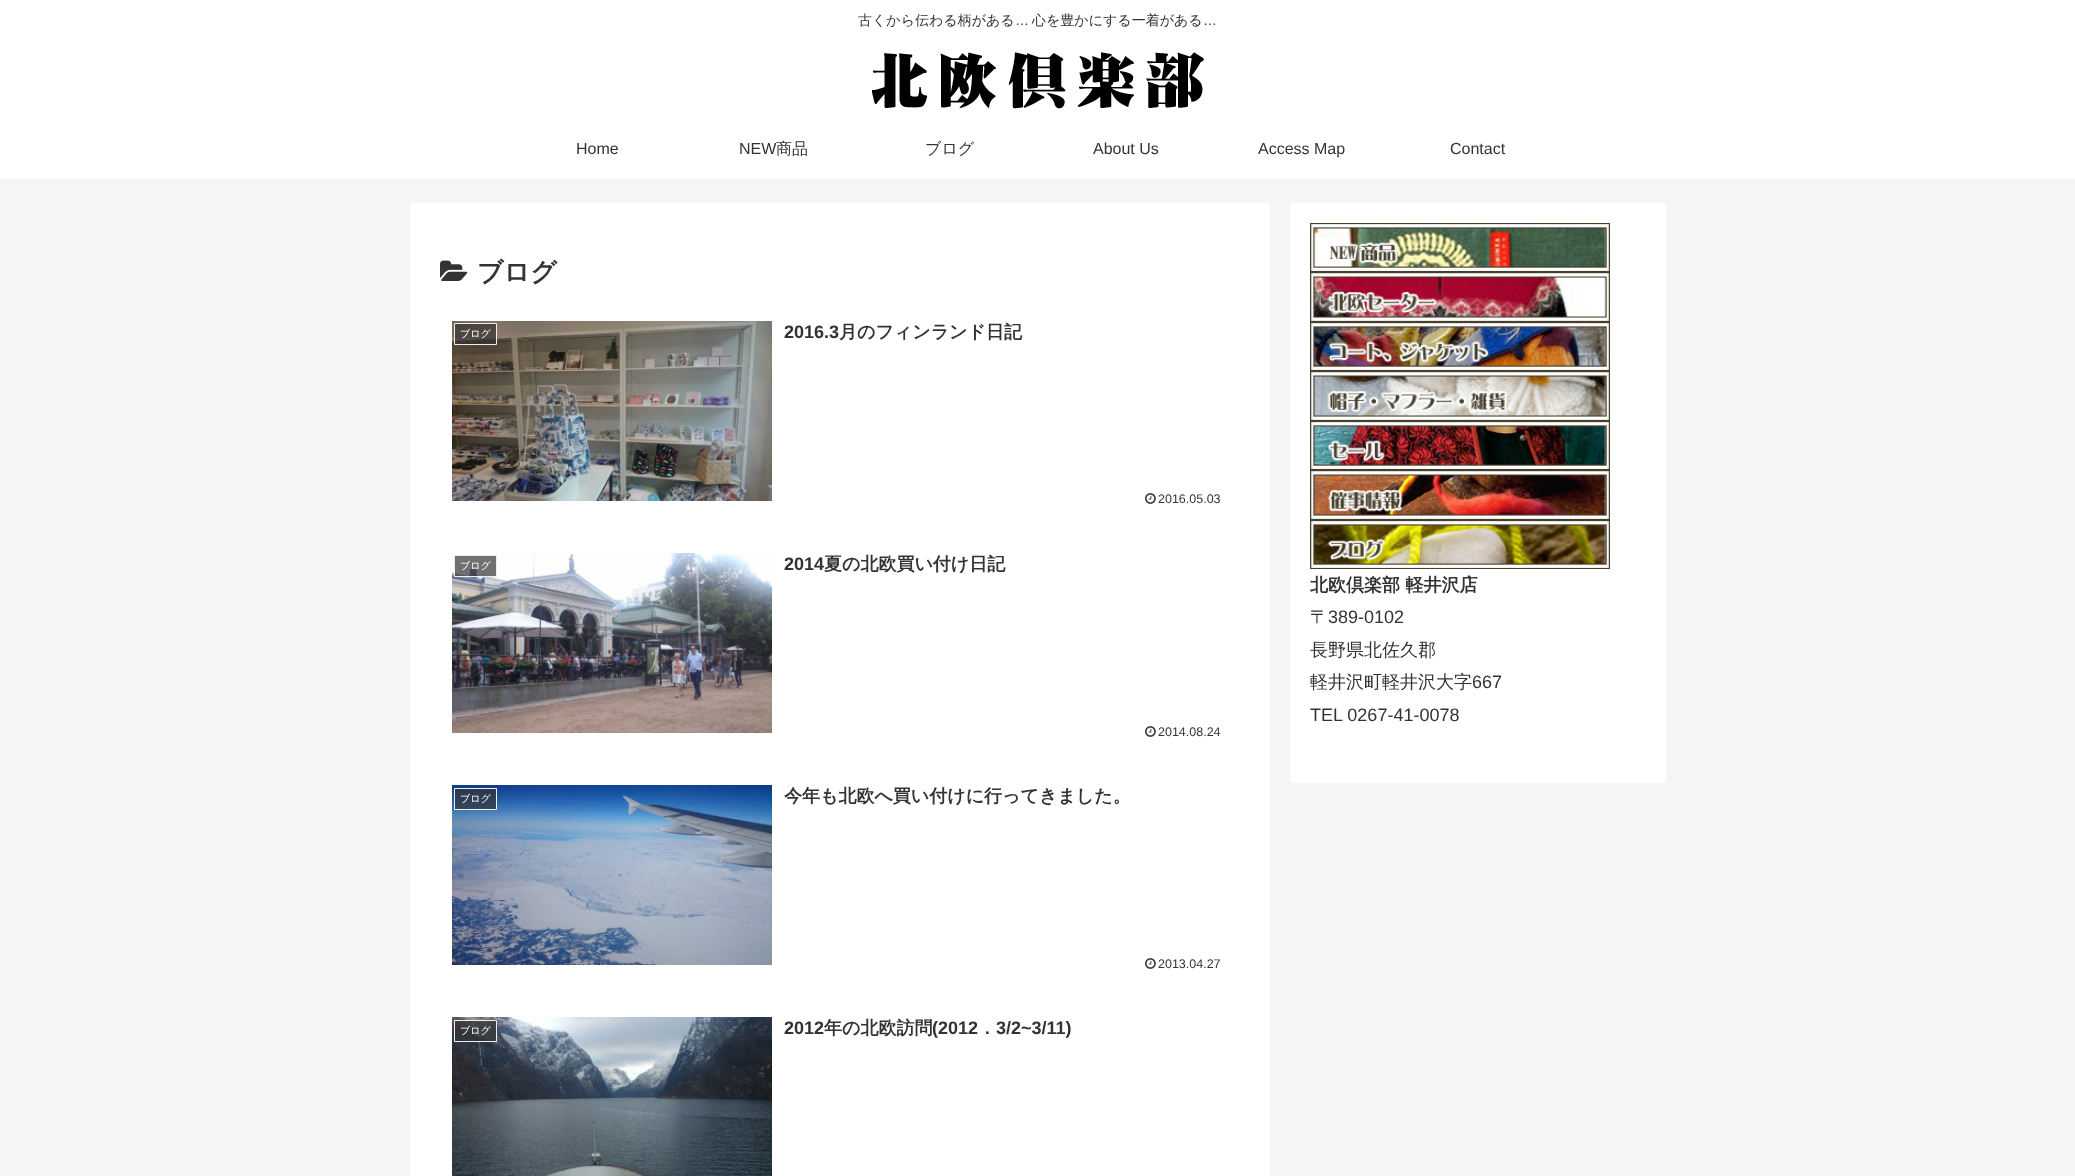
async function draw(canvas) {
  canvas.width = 2075
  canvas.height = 1176
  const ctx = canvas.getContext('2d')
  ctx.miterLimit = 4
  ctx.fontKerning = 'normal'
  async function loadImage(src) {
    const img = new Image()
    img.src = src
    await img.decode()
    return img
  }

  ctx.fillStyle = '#f4f5f7'
  ctx.fillRect(0, 0, 2075, 1176)
  ctx.fillStyle = '#fff'
  ctx.fillRect(0, 0, 2075, 179)
  ctx.font = '500 14px WenQuanYi Zen Hei'
  ctx.fillStyle = '#333'
  ctx.fillText('古くから伝わる柄がある', 858, 25)
  ctx.font = '14px Liberation Sans'
  ctx.fillText('…', 1015, 25)
  ctx.font = '500 14px WenQuanYi Zen Hei'
  ctx.fillText('心を豊かにする一着がある', 1032, 25)
  ctx.font = '14px Liberation Sans'
  ctx.fillText('…', 1203, 25)
  ctx.drawImage(await loadImage('image0.png'), 872, 52, 332, 57)
  ctx.font = '16px Liberation Sans'
  ctx.fillText('Home', 576, 154)
  ctx.fillText('NEW', 739, 154)
  ctx.font = '500 16px WenQuanYi Zen Hei'
  ctx.fillText('商品', 776, 154)
  ctx.fillText('ブログ', 925, 154)
  ctx.font = '16px Liberation Sans'
  ctx.fillText('About Us', 1093, 154)
  ctx.fillText('Access Map', 1258, 154)
  ctx.fillText('Contact', 1450, 154)
  ctx.fillStyle = '#fff'
  ctx.beginPath()
  ctx.roundRect(410, 203, 860, 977, 4)
  ctx.fill()
  ctx.drawImage(await loadImage('image1.png'), 440, 260, 28, 21)
  ctx.font = 'bold 26px WenQuanYi Zen Hei'
  ctx.fillStyle = '#333'
  ctx.fillText('ブログ', 477, 281)
  ctx.drawImage(await loadImage('image2.png'), 452, 321, 320, 180)
  ctx.fillStyle = '#333333b3'
  ctx.beginPath()
  ctx.rect(454.5, 323.5, 42, 21)
  ctx.fill()
  ctx.strokeStyle = '#eee'
  ctx.stroke()
  ctx.font = '500 10px WenQuanYi Zen Hei'
  ctx.fillStyle = '#fff'
  ctx.fillText('ブログ', 460, 337)
  ctx.font = 'bold 18px Liberation Sans'
  ctx.fillStyle = '#333'
  ctx.fillText('2016.3', 784, 338)
  ctx.font = 'bold 18px WenQuanYi Zen Hei'
  ctx.fillText('月のフィンランド日記', 839, 338)
  ctx.drawImage(await loadImage('image3.png'), 1145, 493, 11, 11)
  ctx.font = '12.5px Liberation Sans'
  ctx.fillText('2016.05.03', 1158, 503)
  ctx.drawImage(await loadImage('image4.png'), 452, 553, 320, 180)
  ctx.fillStyle = '#333333b3'
  ctx.beginPath()
  ctx.rect(454.5, 555.5, 42, 21)
  ctx.fill()
  ctx.stroke()
  ctx.font = '500 10px WenQuanYi Zen Hei'
  ctx.fillStyle = '#fff'
  ctx.fillText('ブログ', 460, 569)
  ctx.font = 'bold 18px Liberation Sans'
  ctx.fillStyle = '#333'
  ctx.fillText('2014', 784, 570)
  ctx.font = 'bold 18px WenQuanYi Zen Hei'
  ctx.fillText('夏の北欧買い付け日記', 824, 570)
  ctx.drawImage(await loadImage('image3.png'), 1145, 726, 11, 11)
  ctx.font = '12.5px Liberation Sans'
  ctx.fillText('2014.08.24', 1158, 736)
  ctx.drawImage(await loadImage('image5.png'), 452, 785, 320, 180)
  ctx.fillStyle = '#333333b3'
  ctx.beginPath()
  ctx.rect(454.5, 788.5, 42, 21)
  ctx.fill()
  ctx.stroke()
  ctx.font = '500 10px WenQuanYi Zen Hei'
  ctx.fillStyle = '#fff'
  ctx.fillText('ブログ', 460, 802)
  ctx.font = 'bold 18px WenQuanYi Zen Hei'
  ctx.fillStyle = '#333'
  ctx.fillText('今年も北欧へ買い付けに行ってきました。', 784, 802)
  ctx.drawImage(await loadImage('image3.png'), 1145, 958, 11, 11)
  ctx.font = '12.5px Liberation Sans'
  ctx.fillText('2013.04.27', 1158, 968)
  ctx.drawImage(await loadImage('image6.png'), 452, 1017, 320, 159)
  ctx.fillStyle = '#333333b3'
  ctx.beginPath()
  ctx.rect(454.5, 1020.5, 42, 21)
  ctx.fill()
  ctx.stroke()
  ctx.font = '500 10px WenQuanYi Zen Hei'
  ctx.fillStyle = '#fff'
  ctx.fillText('ブログ', 460, 1034)
  ctx.font = 'bold 18px Liberation Sans'
  ctx.fillStyle = '#333'
  ctx.fillText('2012', 784, 1034)
  ctx.font = 'bold 18px WenQuanYi Zen Hei'
  ctx.fillText('年の北欧訪問', 824, 1034)
  ctx.font = 'bold 18px Liberation Sans'
  ctx.fillText('(2012', 932, 1034)
  ctx.font = 'bold 18px WenQuanYi Zen Hei'
  ctx.fillText('．', 978, 1034)
  ctx.font = 'bold 18px Liberation Sans'
  ctx.fillText('3/2~3/11)', 996, 1034)
  ctx.fillStyle = '#fff'
  ctx.beginPath()
  ctx.roundRect(1290, 203, 376, 580, 4)
  ctx.fill()
  ctx.drawImage(await loadImage('image7.png'), 1310, 223, 300, 49)
  ctx.drawImage(await loadImage('image8.png'), 1310, 272, 300, 50)
  ctx.drawImage(await loadImage('image9.png'), 1310, 322, 300, 49)
  ctx.drawImage(await loadImage('image10.png'), 1310, 371, 300, 50)
  ctx.drawImage(await loadImage('image11.png'), 1310, 421, 300, 49)
  ctx.drawImage(await loadImage('image12.png'), 1310, 470, 300, 50)
  ctx.drawImage(await loadImage('image13.png'), 1310, 520, 300, 49)
  ctx.font = 'bold 18px WenQuanYi Zen Hei'
  ctx.fillStyle = '#333'
  ctx.fillText('北欧倶楽部 軽井沢店', 1310, 591)
  ctx.font = '500 18px WenQuanYi Zen Hei'
  ctx.fillText('〒', 1310, 623)
  ctx.font = '18px Liberation Sans'
  ctx.fillText('389-0102', 1328, 623)
  ctx.font = '500 18px WenQuanYi Zen Hei'
  ctx.fillText('長野県北佐久郡', 1310, 656)
  ctx.fillText('軽井沢町軽井沢大字', 1310, 688)
  ctx.font = '18px Liberation Sans'
  ctx.fillText('667', 1472, 688)
  ctx.fillText('TEL 0267-41-0078', 1310, 721)
}

draw(document.querySelector('canvas'))
